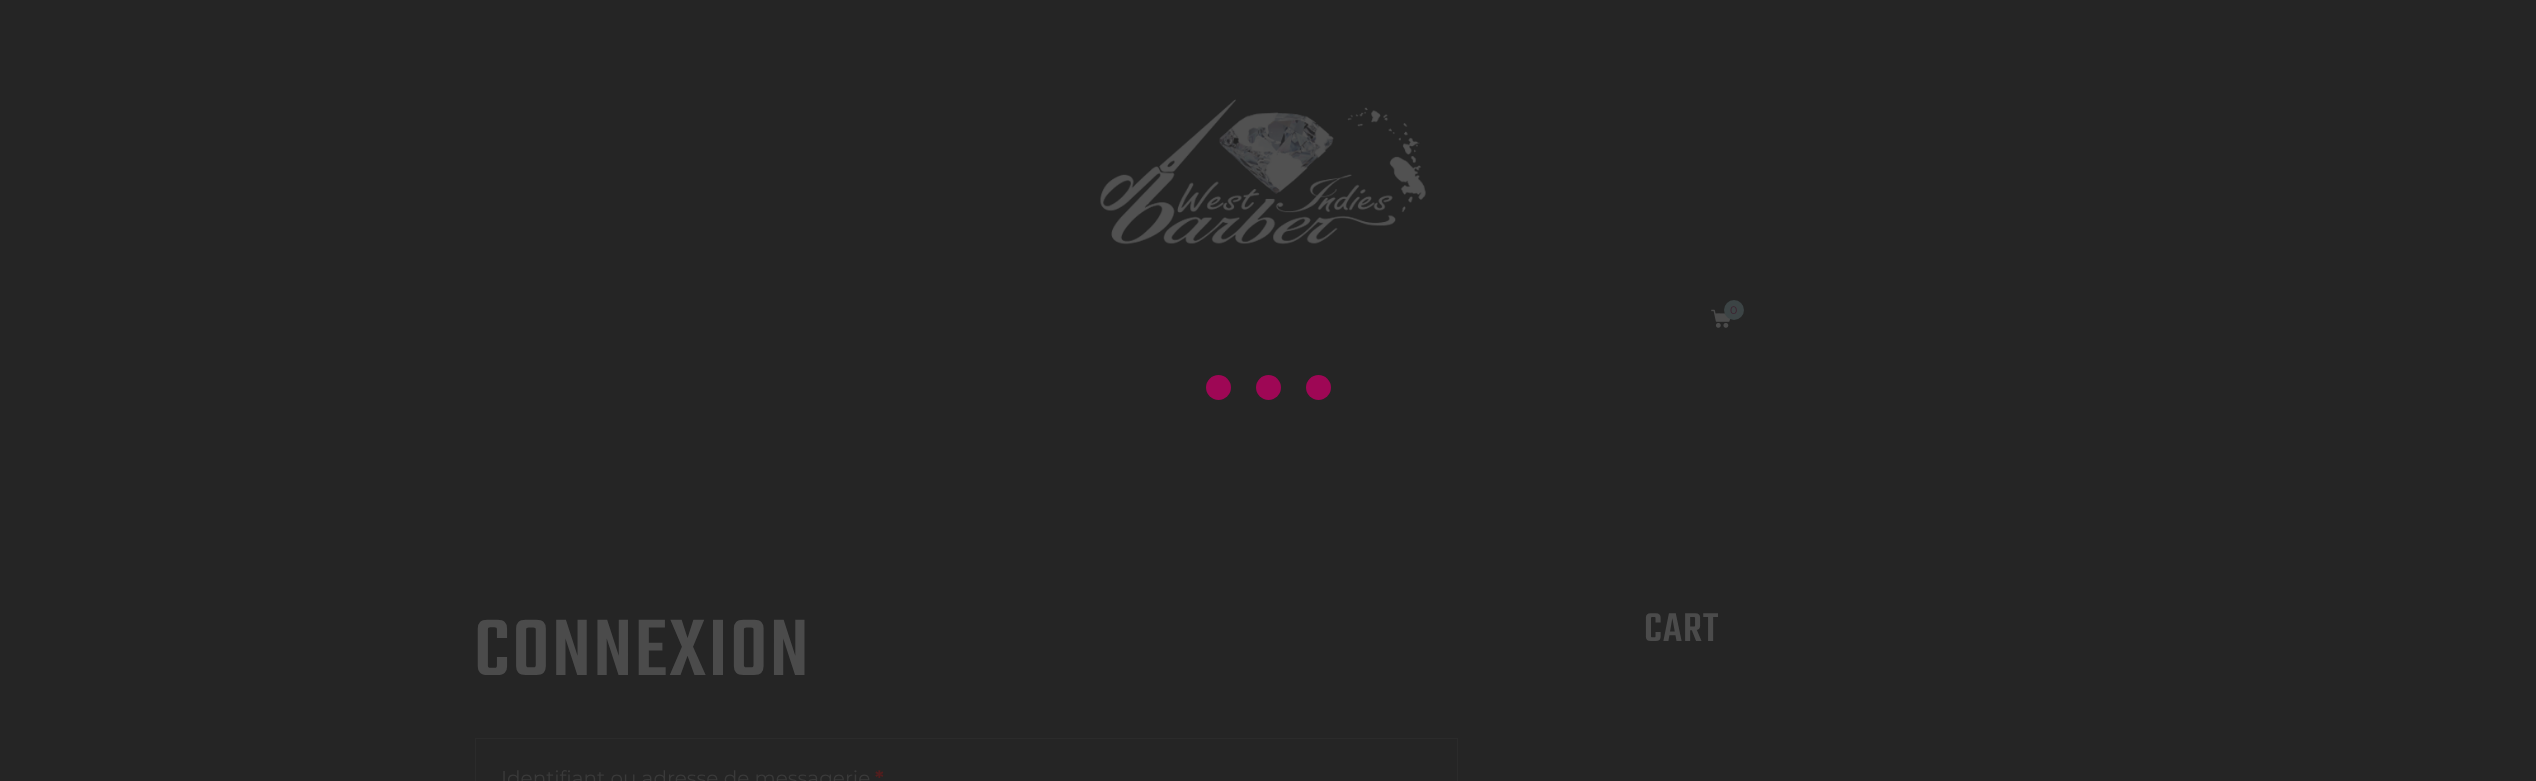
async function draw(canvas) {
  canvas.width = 2536
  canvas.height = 781
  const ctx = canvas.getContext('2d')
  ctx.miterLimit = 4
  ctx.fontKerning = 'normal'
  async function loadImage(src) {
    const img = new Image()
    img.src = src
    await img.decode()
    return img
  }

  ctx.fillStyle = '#252525'
  ctx.fillRect(0, 0, 2536, 781)
  ctx.drawImage(await loadImage('image0.png'), 1100, 99, 326, 146)
  ctx.drawImage(await loadImage('image1.png'), 1711, 309, 19, 19)
  ctx.fillStyle = '#3c4445'
  ctx.beginPath()
  ctx.arc(1734, 310, 10, 0, 2 * Math.PI)
  ctx.fill()
  ctx.font = '11px Montserrat'
  ctx.fillStyle = '#3e1e2e'
  ctx.fillText('0', 1730, 314)
  ctx.letterSpacing = '2.25px'
  ctx.font = '500 87.5px Teko'
  ctx.fillStyle = '#4b4b4b'
  ctx.fillText('CONNEXION', 474, 675)
  ctx.strokeStyle = '#2b2b2b'
  ctx.strokeRect(475.5, 738.5, 982, 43)
  ctx.letterSpacing = '0px'
  ctx.font = '20px Montserrat'
  ctx.fillStyle = '#3a3a3a'
  ctx.fillText('Identifiant ou adresse de messagerie', 501, 785)
  ctx.font = 'bold 20px Montserrat'
  ctx.fillStyle = '#511e1e'
  ctx.fillText('*', 875, 785)
  ctx.letterSpacing = '1px'
  ctx.font = '500 44px Teko'
  ctx.fillStyle = '#4b4b4b'
  ctx.fillText('CART', 1644, 641)
  ctx.fillStyle = '#9e0755'
  ctx.beginPath()
  ctx.arc(1218.5, 387.5, 12.5, 0, 2 * Math.PI)
  ctx.fill()
  ctx.beginPath()
  ctx.arc(1268.5, 387.5, 12.5, 0, 2 * Math.PI)
  ctx.fill()
  ctx.beginPath()
  ctx.arc(1318.5, 387.5, 12.5, 0, 2 * Math.PI)
  ctx.fill()
}

draw(document.querySelector('canvas'))
